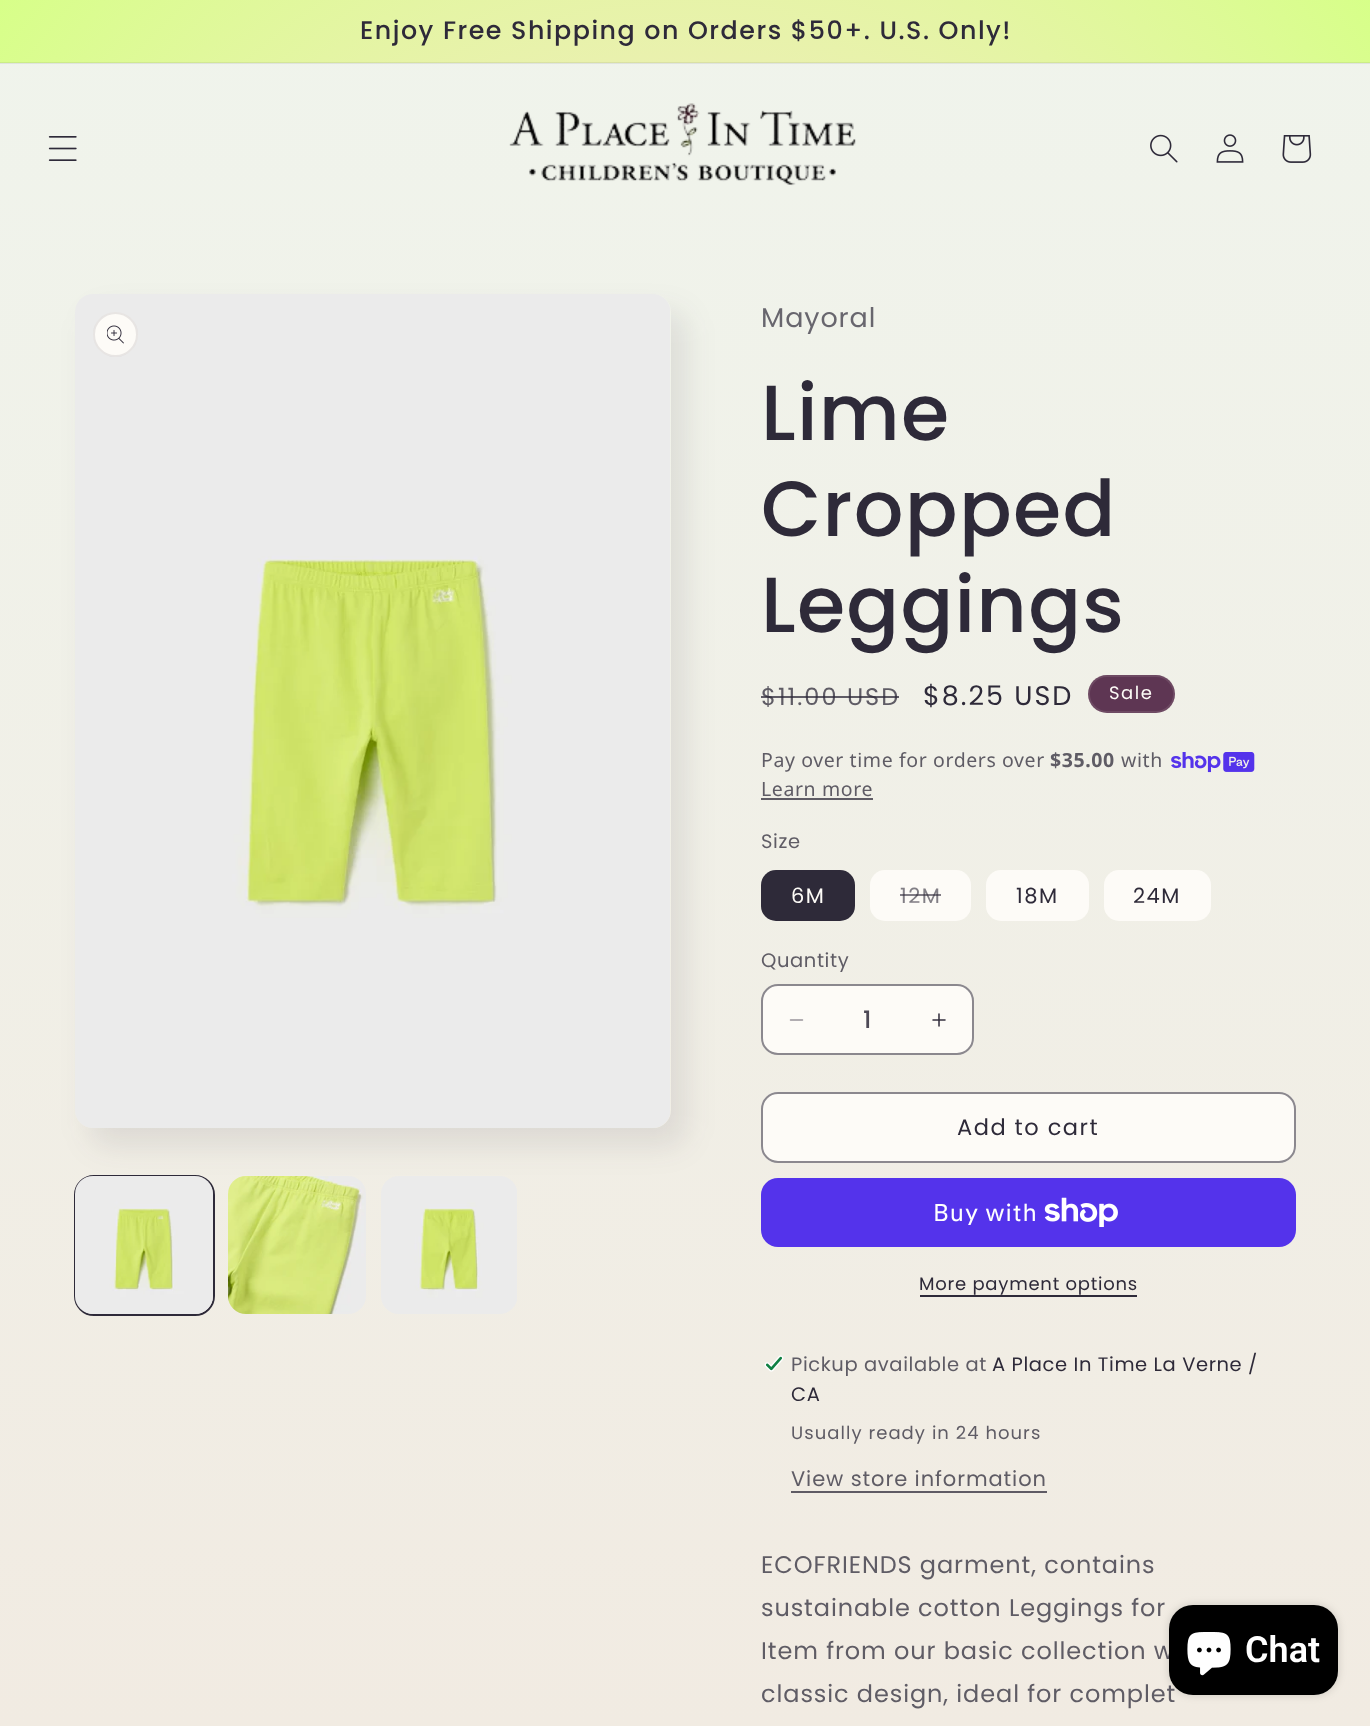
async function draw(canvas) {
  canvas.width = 1370
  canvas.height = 1726
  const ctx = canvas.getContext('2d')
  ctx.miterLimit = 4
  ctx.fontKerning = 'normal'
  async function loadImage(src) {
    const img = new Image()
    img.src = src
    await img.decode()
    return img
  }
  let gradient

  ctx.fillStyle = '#fff'
  ctx.fillRect(0, 0, 1370, 1726)
  gradient = ctx.createLinearGradient(685, 0, 686, 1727)
  gradient.addColorStop(0, '#f0f4ec')
  gradient.addColorStop(1, '#f1ebe2')
  ctx.fillStyle = gradient
  ctx.fillRect(0, 64, 1370, 1662)
  gradient = ctx.createLinearGradient(685, 0, 686, 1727)
  gradient.addColorStop(0, '#e0e4de')
  gradient.addColorStop(1, '#e1dcd4')
  ctx.fillStyle = gradient
  ctx.fillRect(0, 63, 1370, 1)
  gradient = ctx.createRadialGradient(686, 684.89, 0, 686, 684.89, 969)
  gradient.addColorStop(0, '#ffe5e5')
  gradient.addColorStop(0.25, '#ffe0da')
  gradient.addColorStop(1, '#d7ff89')
  ctx.fillStyle = gradient
  ctx.beginPath()
  ctx.rect(0, 0, 1370, 62)
  ctx.save()
  ctx.clip()
  ctx.scale(1, 1221 / 969)
  ctx.fillRect(0, 0, 1370, 1370)
  ctx.restore()
  gradient = ctx.createRadialGradient(686, 684.89, 0, 686, 684.89, 969)
  gradient.addColorStop(0, '#eed6d7')
  gradient.addColorStop(0.25, '#eed1cd')
  gradient.addColorStop(1, '#c9ee83')
  ctx.fillStyle = gradient
  ctx.beginPath()
  ctx.rect(0, 62, 1370, 1)
  ctx.save()
  ctx.clip()
  ctx.scale(1, 1221 / 969)
  ctx.fillRect(0, 0, 1370, 1370)
  ctx.restore()
  ctx.letterSpacing = '1.5px'
  ctx.font = '500 25.35px Poppins'
  ctx.fillStyle = '#2e2a39'
  ctx.fillText('Enjoy Free Shipping on Orders $50+. U.S. Only!', 360, 39)
  ctx.drawImage(await loadImage('image0.png'), 48, 136, 29, 25)
  ctx.drawImage(await loadImage('image1.png'), 509, 103, 347, 83)
  ctx.drawImage(await loadImage('image2.png'), 1150, 134, 28, 29)
  ctx.drawImage(await loadImage('image3.png'), 1216, 134, 28, 29)
  ctx.drawImage(await loadImage('image4.png'), 1282, 135, 30, 28)
  ctx.fillStyle = '#2e2a391a'
  ctx.filter = 'blur(15px)'
  ctx.beginPath()
  ctx.roundRect(90, 312, 596, 834, 18)
  ctx.fill()
  ctx.filter = 'none'
  gradient = ctx.createLinearGradient(685, 0, 686, 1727)
  gradient.addColorStop(0, '#f0f4ec')
  gradient.addColorStop(1, '#f1ebe2')
  ctx.fillStyle = gradient
  ctx.beginPath()
  ctx.roundRect(75, 294, 596, 834, 18)
  ctx.fill()
  ctx.drawImage(await loadImage('image5.png'), 75, 294, 595, 834)
  ctx.fillStyle = '#fdfbf7'
  ctx.beginPath()
  ctx.arc(115.5, 334.5, 22.5, 0, 2 * Math.PI)
  ctx.fill()
  ctx.beginPath()
  ctx.arc(115.5, 334.5, 21.5, 0, 2 * Math.PI)
  ctx.strokeStyle = '#2e2a391a'
  ctx.lineWidth = 2
  ctx.stroke()
  ctx.drawImage(await loadImage('image6.png'), 107, 325, 17, 19)
  ctx.beginPath()
  ctx.roundRect(75, 1176, 139, 139, 19)
  ctx.strokeStyle = '#2e2a39'
  ctx.stroke()
  ctx.drawImage(await loadImage('image7.png'), 75, 1176, 138, 138)
  ctx.drawImage(await loadImage('image8.png'), 228, 1176, 138, 138)
  ctx.drawImage(await loadImage('image9.png'), 381, 1176, 136, 138)
  ctx.letterSpacing = '0.9px'
  ctx.font = '27px Poppins'
  ctx.fillStyle = '#68666e'
  ctx.fillText('Mayoral', 761, 327)
  ctx.letterSpacing = '1.25px'
  ctx.font = '500 78px Poppins'
  ctx.fillStyle = '#2e2a39'
  ctx.fillText('Lime', 761, 440)
  ctx.fillText('Cropped', 761, 536)
  ctx.fillText('Leggings', 761, 632)
  ctx.letterSpacing = '2px'
  ctx.font = '24px Poppins'
  ctx.fillStyle = '#5f5c65'
  ctx.fillText('$11.00 USD', 761, 705)
  ctx.fillStyle = '#2e2a39bf'
  ctx.fillRect(761, 696, 138, 2)
  ctx.font = '27px Poppins'
  ctx.fillStyle = '#2e2a39'
  ctx.fillText('$8.25 USD', 923, 705)
  ctx.fillStyle = '#5e3653'
  ctx.beginPath()
  ctx.roundRect(1088, 675, 87, 38, 19)
  ctx.fill()
  ctx.beginPath()
  ctx.roundRect(1089, 676, 85, 36, 18)
  ctx.strokeStyle = '#fdfbf71a'
  ctx.stroke()
  ctx.letterSpacing = '1.5px'
  ctx.font = '18px Poppins'
  ctx.fillStyle = '#fdfbf7'
  ctx.fillText('Sale', 1109, 699)
  ctx.letterSpacing = '0.6px'
  ctx.font = '19.5px Noto Sans'
  ctx.fillStyle = '#5f5c65'
  ctx.fillText('Pay over time for orders over', 761, 767)
  ctx.font = 'bold 19.5px Noto Sans'
  ctx.fillText('$35.00', 1050, 767)
  ctx.font = '19.5px Noto Sans'
  ctx.fillText('with', 1121, 767)
  ctx.drawImage(await loadImage('image10.png'), 1171, 752, 84, 21)
  ctx.fillText('Learn more', 761, 796)
  ctx.fillRect(761, 798, 112, 2)
  ctx.font = '19.5px Poppins'
  ctx.fillText('Size', 761, 848)
  ctx.fillStyle = '#2e2a39'
  ctx.beginPath()
  ctx.roundRect(761, 870, 94, 51, 15)
  ctx.fill()
  ctx.letterSpacing = '1.5px'
  ctx.font = '21px Poppins'
  ctx.fillStyle = '#fdfbf7'
  ctx.fillText('6M', 791, 903)
  ctx.beginPath()
  ctx.roundRect(870, 870, 101, 51, 15)
  ctx.fill()
  ctx.fillStyle = '#817e85'
  ctx.fillText('12M', 900, 903)
  ctx.fillStyle = '#2e2a3999'
  ctx.fillRect(900, 894, 41, 2)
  ctx.fillStyle = '#fdfbf7'
  ctx.beginPath()
  ctx.roundRect(986, 870, 103, 51, 15)
  ctx.fill()
  ctx.fillStyle = '#2e2a39'
  ctx.fillText('18M', 1016, 903)
  ctx.fillStyle = '#fdfbf7'
  ctx.beginPath()
  ctx.roundRect(1104, 870, 107, 51, 15)
  ctx.fill()
  ctx.fillStyle = '#2e2a39'
  ctx.fillText('24M', 1133, 903)
  ctx.letterSpacing = '0.6px'
  ctx.font = '19.5px Poppins'
  ctx.fillStyle = '#5f5c65'
  ctx.fillText('Quantity', 761, 967)
  ctx.fillStyle = '#fdfbf7'
  ctx.beginPath()
  ctx.roundRect(761, 984, 213, 71, 17)
  ctx.fill()
  ctx.drawImage(await loadImage('image11.png'), 789, 1019, 15, 2)
  ctx.drawImage(await loadImage('image12.png'), 932, 1013, 14, 14)
  ctx.beginPath()
  ctx.roundRect(762, 985, 211, 69, 16)
  ctx.strokeStyle = '#2e2a398c'
  ctx.stroke()
  ctx.letterSpacing = '0px'
  ctx.font = '500 24px Poppins'
  ctx.fillStyle = '#4d4956'
  ctx.fillText('1', 863, 1028)
  ctx.fillStyle = '#fdfbf7'
  ctx.beginPath()
  ctx.roundRect(761, 1092, 535, 71, 17)
  ctx.fill()
  ctx.beginPath()
  ctx.roundRect(762, 1093, 533, 69, 16)
  ctx.strokeStyle = '#fdfbf7'
  ctx.stroke()
  ctx.beginPath()
  ctx.roundRect(762, 1093, 533, 69, 16)
  ctx.strokeStyle = '#2e2a398c'
  ctx.stroke()
  ctx.letterSpacing = '1.5px'
  ctx.font = '22.5px Poppins'
  ctx.fillStyle = '#2e2a39'
  ctx.fillText('Add to cart', 957, 1135)
  ctx.fillStyle = '#5433eb'
  ctx.beginPath()
  ctx.roundRect(761, 1178, 535, 69, 17)
  ctx.fill()
  ctx.letterSpacing = '0.9px'
  ctx.font = '24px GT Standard'
  ctx.fillStyle = '#fff'
  ctx.fillText('Buy with', 933, 1221)
  ctx.drawImage(await loadImage('image13.png'), 1044, 1197, 74, 30)
  ctx.letterSpacing = '0.75px'
  ctx.font = '18px Poppins'
  ctx.fillStyle = '#2e2a39'
  ctx.fillText('More payment options', 919, 1290)
  ctx.fillRect(920, 1295, 217, 2)
  ctx.drawImage(await loadImage('image14.png'), 764, 1355, 20, 17)
  ctx.letterSpacing = '0.6px'
  ctx.font = '19.5px Poppins'
  ctx.fillStyle = '#5f5c65'
  ctx.fillText('Pickup available at', 791, 1371)
  ctx.fillStyle = '#2e2a39'
  ctx.fillText('A Place In Time La Verne /', 992, 1371)
  ctx.fillText('CA', 791, 1401)
  ctx.letterSpacing = '1.05px'
  ctx.font = '18px Poppins'
  ctx.fillStyle = '#5f5c65'
  ctx.fillText('Usually ready in 24 hours', 791, 1439)
  ctx.letterSpacing = '0.9px'
  ctx.font = '21px Poppins'
  ctx.fillText('View store information', 791, 1486)
  ctx.fillStyle = '#5f5b64'
  ctx.fillRect(791, 1491, 256, 2)
  ctx.font = '24px Poppins'
  ctx.fillStyle = '#5f5c65'
  ctx.fillText('ECOFRIENDS garment, contains', 761, 1573)
  ctx.fillText('sustainable cotton Leggings for', 761, 1616)
  ctx.fillText('Item from our basic collection w', 761, 1659)
  ctx.fillText('classic design, ideal for complet', 761, 1702)
  ctx.fillStyle = '#00000026'
  ctx.filter = 'blur(4px)'
  ctx.beginPath()
  ctx.roundRect(1169, 1605, 169, 90, 24)
  ctx.fill()
  ctx.filter = 'none'
  ctx.fillStyle = '#000'
  ctx.beginPath()
  ctx.roundRect(1169, 1605, 169, 90, 24)
  ctx.fill()
  ctx.drawImage(await loadImage('image15.png'), 1187, 1632, 44, 44)
  ctx.letterSpacing = '0px'
  ctx.font = '600 36px Roboto'
  ctx.fillStyle = '#fff'
  ctx.fillText('Chat', 1245, 1662)
}

draw(document.querySelector('canvas'))
